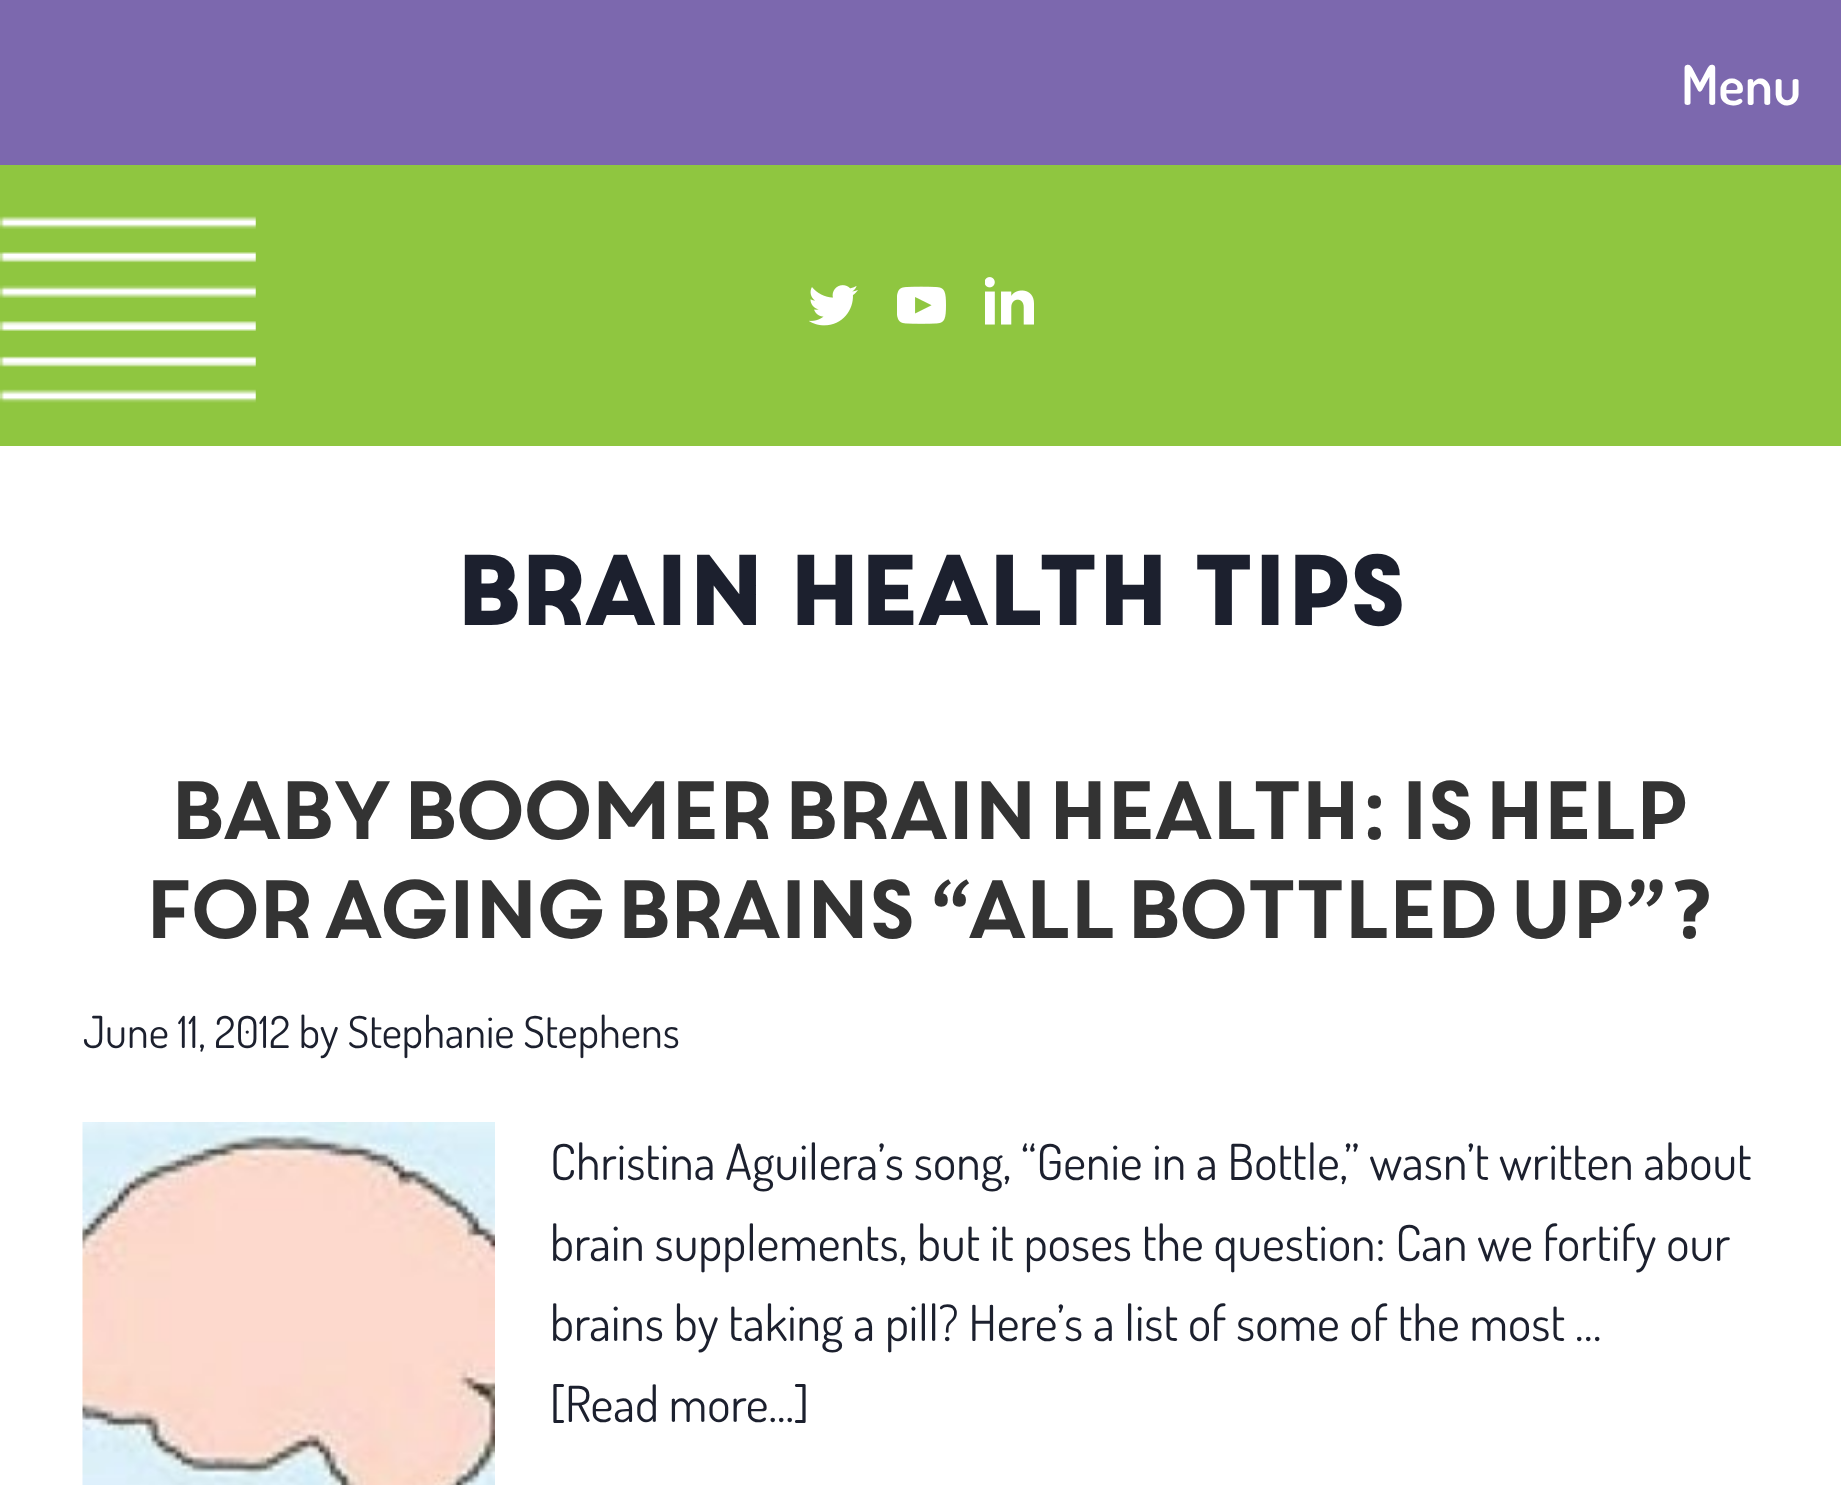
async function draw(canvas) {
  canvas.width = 1841
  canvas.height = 1485
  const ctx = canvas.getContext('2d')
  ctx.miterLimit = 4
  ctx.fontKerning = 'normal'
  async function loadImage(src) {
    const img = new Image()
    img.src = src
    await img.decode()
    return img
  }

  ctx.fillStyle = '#fff'
  ctx.fillRect(0, 0, 1841, 1485)
  ctx.fillStyle = '#7c68ae'
  ctx.fillRect(0, 0, 1841, 165)
  ctx.font = '600 55px Dosis'
  ctx.fillStyle = '#fff'
  ctx.fillText('Menu', 1681, 105)
  ctx.fillStyle = '#8fc640'
  ctx.fillRect(0, 165, 1841, 281)
  ctx.drawImage(await loadImage('image0.png'), 0, 216, 256, 187)
  ctx.drawImage(await loadImage('image1.png'), 809, 285, 49, 41)
  ctx.drawImage(await loadImage('image2.png'), 897, 286, 49, 38)
  ctx.drawImage(await loadImage('image3.png'), 985, 277, 49, 48)
  ctx.letterSpacing = '-16.5px'
  ctx.wordSpacing = '8px'
  ctx.font = 'bold 96.25px "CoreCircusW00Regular"'
  ctx.fillStyle = '#1c202e'
  ctx.fillText('brain health tips', 447, 625)
  ctx.wordSpacing = '0px'
  ctx.font = '82.5px "CoreCircusW00Regular"'
  ctx.fillStyle = '#333'
  ctx.fillText('Baby boomer brain health: Is help', 163, 839)
  ctx.fillText('for aging brains “all bottled up”?', 138, 938)
  ctx.letterSpacing = '0px'
  ctx.font = '44px Dosis'
  ctx.fillStyle = '#1c202e'
  ctx.fillText('June 11, 2012 by Stephanie Stephens', 83, 1048)
  ctx.drawImage(await loadImage('image4.png'), 82, 1122, 413, 363)
  ctx.font = '49.5px Dosis'
  ctx.fillText('Christina Aguilera’s song, “Genie in a Bottle,” wasn’t written about', 550, 1180)
  ctx.fillText('brain supplements, but it poses the question: Can we fortify our', 550, 1261)
  ctx.fillText('brains by taking a pill? Here’s a list of some of the most …', 550, 1341)
  ctx.fillText('[Read more...]', 550, 1422)
}

draw(document.querySelector('canvas'))
